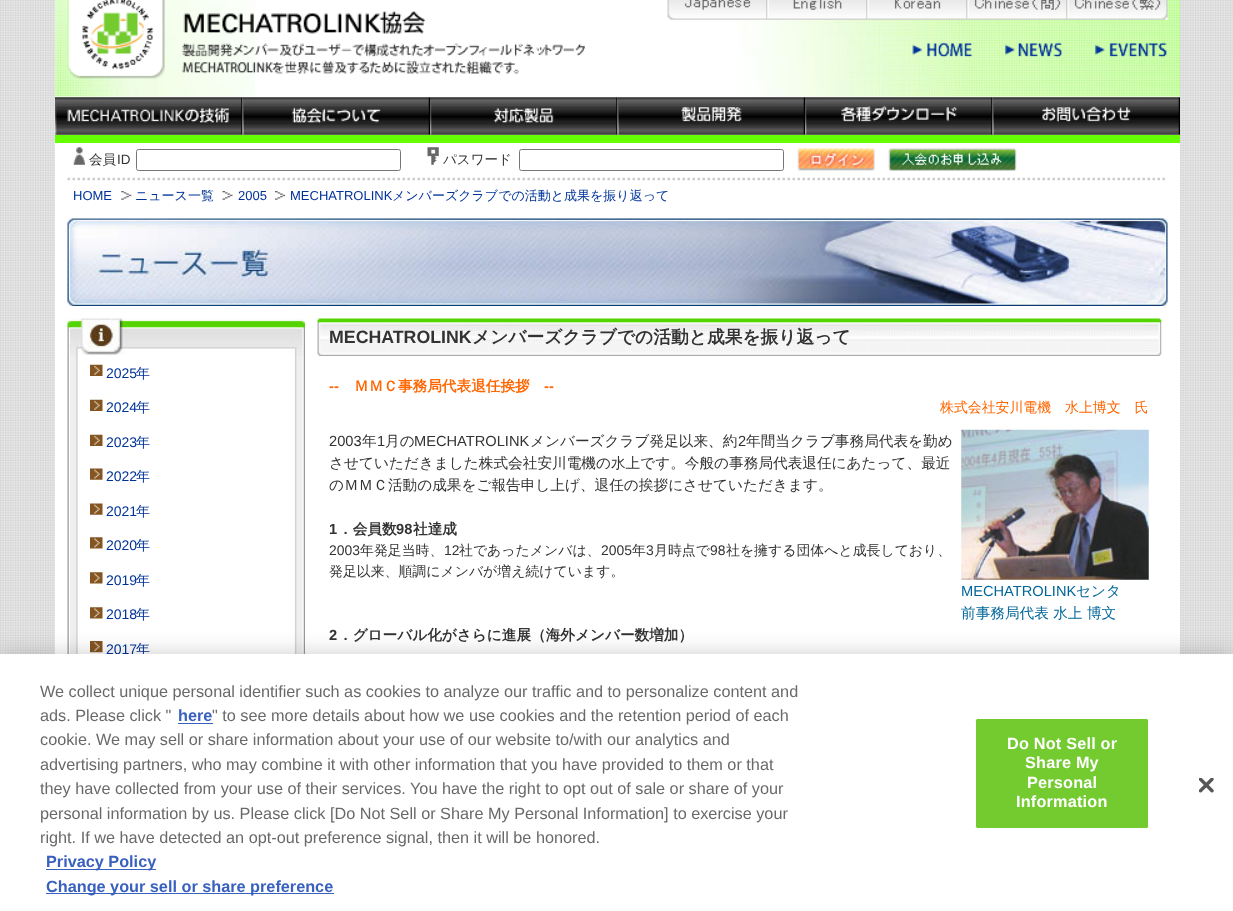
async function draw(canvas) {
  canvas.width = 1233
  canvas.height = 911
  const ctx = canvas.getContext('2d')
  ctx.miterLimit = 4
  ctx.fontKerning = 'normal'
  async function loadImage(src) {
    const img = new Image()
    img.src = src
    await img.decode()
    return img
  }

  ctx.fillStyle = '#fff'
  ctx.fillRect(0, 0, 1233, 911)
  ctx.drawImage(await loadImage('image0.png'), 0, 0, 1233, 654)
  ctx.drawImage(await loadImage('image1.png'), 55, 0, 1125, 98)
  ctx.drawImage(await loadImage('image2.png'), 67, 0, 98, 79)
  ctx.drawImage(await loadImage('image3.png'), 182, 11, 403, 63)
  ctx.drawImage(await loadImage('image4.png'), 667, 0, 101, 20)
  ctx.drawImage(await loadImage('image5.png'), 767, 0, 101, 20)
  ctx.drawImage(await loadImage('image6.png'), 867, 0, 101, 20)
  ctx.drawImage(await loadImage('image7.png'), 967, 0, 101, 20)
  ctx.drawImage(await loadImage('image8.png'), 1067, 0, 101, 20)
  ctx.drawImage(await loadImage('image9.png'), 912, 42, 61, 16)
  ctx.drawImage(await loadImage('image10.png'), 1005, 42, 58, 16)
  ctx.drawImage(await loadImage('image11.png'), 1095, 42, 72, 16)
  ctx.fillStyle = '#6f0'
  ctx.fillRect(55, 135, 1125, 8)
  ctx.drawImage(await loadImage('image12.png'), 55, 97, 188, 38)
  ctx.drawImage(await loadImage('image13.png'), 242, 97, 188, 38)
  ctx.drawImage(await loadImage('image14.png'), 430, 97, 188, 38)
  ctx.drawImage(await loadImage('image15.png'), 617, 97, 188, 38)
  ctx.drawImage(await loadImage('image16.png'), 805, 97, 188, 38)
  ctx.drawImage(await loadImage('image17.png'), 992, 97, 188, 38)
  ctx.fillStyle = '#fff'
  ctx.fillRect(55, 143, 1125, 511)
  ctx.beginPath()
  ctx.moveTo(67.5, 179)
  ctx.lineTo(1167.5, 179)
  ctx.strokeStyle = '#ccc'
  ctx.lineWidth = 2.5
  ctx.setLineDash([2.5, 2.5])
  ctx.stroke()
  ctx.drawImage(await loadImage('image18.png'), 73, 147, 12, 18)
  ctx.font = '500 13.5px WenQuanYi Zen Hei'
  ctx.fillStyle = '#333'
  ctx.fillText('会員', 89, 164)
  ctx.font = '13.5px Liberation Sans'
  ctx.fillText('ID', 117, 164)
  ctx.beginPath()
  ctx.roundRect(136.5, 149.5, 264, 21, 2)
  ctx.strokeStyle = '#767676'
  ctx.lineWidth = 1
  ctx.setLineDash([])
  ctx.stroke()
  ctx.drawImage(await loadImage('image19.png'), 427, 147, 12, 18)
  ctx.font = '500 13.5px WenQuanYi Zen Hei'
  ctx.fillText('パスワード', 443, 164)
  ctx.beginPath()
  ctx.roundRect(519.5, 149.5, 264, 21, 2)
  ctx.stroke()
  ctx.drawImage(await loadImage('image20.png'), 797, 148, 78, 23)
  ctx.drawImage(await loadImage('image21.png'), 888, 148, 129, 23)
  ctx.font = '13px Liberation Sans'
  ctx.fillStyle = '#039'
  ctx.fillText('HOME', 73, 200)
  ctx.drawImage(await loadImage('image22.png'), 121, 191, 11, 9)
  ctx.font = '500 13px WenQuanYi Zen Hei'
  ctx.fillText('ニュース一覧', 135, 200)
  ctx.drawImage(await loadImage('image23.png'), 222, 191, 11, 9)
  ctx.font = '13px Liberation Sans'
  ctx.fillText('2005', 238, 200)
  ctx.drawImage(await loadImage('image24.png'), 275, 191, 10, 9)
  ctx.fillText('MECHATROLINK', 290, 200)
  ctx.font = '500 13px WenQuanYi Zen Hei'
  ctx.fillText('メンバーズクラブでの活動と成果を振り返って', 392, 200)
  ctx.drawImage(await loadImage('image25.png'), 67, 218, 1101, 88)
  ctx.drawImage(await loadImage('image26.png'), 67, 318, 238, 38)
  ctx.drawImage(await loadImage('image27.png'), 67, 356, 238, 298)
  ctx.drawImage(await loadImage('image28.png'), 90, 364, 13, 12)
  ctx.font = '14px Liberation Sans'
  ctx.fillText('2025', 106, 378)
  ctx.font = '500 14px WenQuanYi Zen Hei'
  ctx.fillText('年', 136, 378)
  ctx.drawImage(await loadImage('image28.png'), 90, 399, 13, 12)
  ctx.font = '14px Liberation Sans'
  ctx.fillText('2024', 106, 412)
  ctx.font = '500 14px WenQuanYi Zen Hei'
  ctx.fillText('年', 136, 412)
  ctx.drawImage(await loadImage('image28.png'), 90, 434, 13, 12)
  ctx.font = '14px Liberation Sans'
  ctx.fillText('2023', 106, 447)
  ctx.font = '500 14px WenQuanYi Zen Hei'
  ctx.fillText('年', 136, 447)
  ctx.drawImage(await loadImage('image29.png'), 90, 468, 13, 12)
  ctx.font = '14px Liberation Sans'
  ctx.fillText('2022', 106, 481)
  ctx.font = '500 14px WenQuanYi Zen Hei'
  ctx.fillText('年', 136, 481)
  ctx.drawImage(await loadImage('image29.png'), 90, 503, 13, 12)
  ctx.font = '14px Liberation Sans'
  ctx.fillText('2021', 106, 516)
  ctx.font = '500 14px WenQuanYi Zen Hei'
  ctx.fillText('年', 136, 516)
  ctx.drawImage(await loadImage('image30.png'), 90, 537, 13, 12)
  ctx.font = '14px Liberation Sans'
  ctx.fillText('2020', 106, 550)
  ctx.font = '500 14px WenQuanYi Zen Hei'
  ctx.fillText('年', 136, 550)
  ctx.drawImage(await loadImage('image31.png'), 90, 572, 13, 12)
  ctx.font = '14px Liberation Sans'
  ctx.fillText('2019', 106, 585)
  ctx.font = '500 14px WenQuanYi Zen Hei'
  ctx.fillText('年', 136, 585)
  ctx.drawImage(await loadImage('image30.png'), 90, 607, 13, 12)
  ctx.font = '14px Liberation Sans'
  ctx.fillText('2018', 106, 619)
  ctx.font = '500 14px WenQuanYi Zen Hei'
  ctx.fillText('年', 136, 619)
  ctx.drawImage(await loadImage('image32.png'), 90, 641, 13, 12)
  ctx.font = '14px Liberation Sans'
  ctx.fillText('2017', 106, 654)
  ctx.font = '500 14px WenQuanYi Zen Hei'
  ctx.fillText('年', 136, 654)
  ctx.drawImage(await loadImage('image33.png'), 317, 318, 845, 38)
  ctx.font = 'bold 17.75px Liberation Sans'
  ctx.fillStyle = '#333'
  ctx.fillText('MECHATROLINK', 329, 343)
  ctx.font = 'bold 17.75px WenQuanYi Zen Hei'
  ctx.fillText('メンバーズクラブでの活動と成果を振り返って', 472, 343)
  ctx.font = 'bold 14.65px Liberation Sans'
  ctx.fillStyle = '#f60'
  ctx.fillText('--', 329, 391)
  ctx.font = 'bold 14.65px WenQuanYi Zen Hei'
  ctx.fillText('ＭＭＣ事務局代表退任挨拶', 354, 391)
  ctx.font = 'bold 14.65px Liberation Sans'
  ctx.fillText('--', 544, 391)
  ctx.font = '500 13.9px WenQuanYi Zen Hei'
  ctx.fillText('株式会社安川電機　水上博文　氏', 940, 412)
  ctx.font = '14.65px Liberation Sans'
  ctx.fillStyle = '#333'
  ctx.fillText('2003', 329, 446)
  ctx.font = '500 14.65px WenQuanYi Zen Hei'
  ctx.fillText('年', 362, 446)
  ctx.font = '14.65px Liberation Sans'
  ctx.fillText('1', 377, 446)
  ctx.font = '500 14.65px WenQuanYi Zen Hei'
  ctx.fillText('月の', 385, 446)
  ctx.font = '14.65px Liberation Sans'
  ctx.fillText('MECHATROLINK', 414, 446)
  ctx.font = '500 14.65px WenQuanYi Zen Hei'
  ctx.fillText('メンバーズクラブ発足以来、約', 530, 446)
  ctx.font = '14.65px Liberation Sans'
  ctx.fillText('2', 738, 446)
  ctx.font = '500 14.65px WenQuanYi Zen Hei'
  ctx.fillText('年間当クラブ事務局代表を勤め', 746, 446)
  ctx.fillText('させていただきました株式会社安川電機の水上です。今般の事務局代表退任にあたって、最近', 329, 468)
  ctx.fillText('のＭＭＣ活動の成果をご報告申し上げ、退任の挨拶にさせていただきます。', 329, 490)
  ctx.font = 'bold 14.65px Liberation Sans'
  ctx.fillText('1', 329, 534)
  ctx.font = 'bold 14.65px WenQuanYi Zen Hei'
  ctx.fillText('．会員数', 338, 534)
  ctx.font = 'bold 14.65px Liberation Sans'
  ctx.fillText('98', 396, 534)
  ctx.font = 'bold 14.65px WenQuanYi Zen Hei'
  ctx.fillText('社達成', 413, 534)
  ctx.font = '13.9px Liberation Sans'
  ctx.fillText('2003', 329, 555)
  ctx.font = '500 13.9px WenQuanYi Zen Hei'
  ctx.fillText('年発足当時、', 360, 555)
  ctx.font = '13.9px Liberation Sans'
  ctx.fillText('12', 444, 555)
  ctx.font = '500 13.9px WenQuanYi Zen Hei'
  ctx.fillText('社であったメンバは、', 459, 555)
  ctx.font = '13.9px Liberation Sans'
  ctx.fillText('2005', 601, 555)
  ctx.font = '500 13.9px WenQuanYi Zen Hei'
  ctx.fillText('年', 632, 555)
  ctx.font = '13.9px Liberation Sans'
  ctx.fillText('3', 646, 555)
  ctx.font = '500 13.9px WenQuanYi Zen Hei'
  ctx.fillText('月時点で', 654, 555)
  ctx.font = '13.9px Liberation Sans'
  ctx.fillText('98', 710, 555)
  ctx.font = '500 13.9px WenQuanYi Zen Hei'
  ctx.fillText('社を擁する団体へと成長しており、', 726, 555)
  ctx.fillText('発足以来、順調にメンバが増え続けています。', 329, 576)
  ctx.drawImage(await loadImage('image34.png'), 961, 429, 188, 151)
  ctx.font = '14.65px Liberation Sans'
  ctx.fillStyle = '#069'
  ctx.fillText('MECHATROLINK', 961, 596)
  ctx.font = '500 14.65px WenQuanYi Zen Hei'
  ctx.fillText('センタ', 1076, 596)
  ctx.fillText('前事務局代表 水上 博文', 961, 618)
  ctx.font = 'bold 14.65px Liberation Sans'
  ctx.fillStyle = '#333'
  ctx.fillText('2', 329, 640)
  ctx.font = 'bold 14.65px WenQuanYi Zen Hei'
  ctx.fillText('．グローバル化がさらに進展（海外メンバー数増加）', 338, 640)
  ctx.fillStyle = '#00000033'
  ctx.filter = 'blur(11px)'
  ctx.beginPath()
  ctx.rect(0, 654, 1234, 257)
  ctx.fill()
  ctx.filter = 'none'
  ctx.fillStyle = '#fff'
  ctx.fillRect(0, 654, 1233, 257)
  ctx.font = '16.25px Liberation Sans'
  ctx.fillStyle = '#696969'
  ctx.fillText('We collect unique personal identifier such as cookies to analyze our traffic and to personalize content and', 40, 697)
  ctx.fillText('ads. Please click "', 40, 721)
  ctx.font = 'bold 16.25px Liberation Sans'
  ctx.fillStyle = '#3860be'
  ctx.fillText('here', 178, 721)
  ctx.fillRect(178, 723, 35, 1)
  ctx.font = '16.25px Liberation Sans'
  ctx.fillStyle = '#696969'
  ctx.fillText('" to see more details about how we use cookies and the retention period of each', 212, 721)
  ctx.fillText('cookie. We may sell or share information about your use of our website to/with our analytics and', 40, 745)
  ctx.fillText('advertising partners, who may combine it with other information that you have provided to them or that', 40, 770)
  ctx.fillText('they have collected from your use of their services. You have the right to opt out of sale or share of your', 40, 794)
  ctx.fillText('personal information by us. Please click [Do Not Sell or Share My Personal Information] to exercise your', 40, 819)
  ctx.fillText('right. If we have detected an opt-out preference signal, then it will be honored.', 40, 843)
  ctx.fillStyle = '#3860be'
  ctx.fillRect(46, 869, 110, 1)
  ctx.font = 'bold 16.25px Liberation Sans'
  ctx.fillText('Privacy Policy', 46, 867)
  ctx.fillRect(46, 893, 288, 1)
  ctx.fillText('Change your sell or share preference', 46, 892)
  ctx.fillStyle = '#73cb30'
  ctx.beginPath()
  ctx.roundRect(975.5, 718.5, 173, 110, 2)
  ctx.fill()
  ctx.strokeStyle = '#fff'
  ctx.stroke()
  ctx.letterSpacing = '0.2px'
  ctx.fillStyle = '#fff'
  ctx.fillText('Do Not Sell or', 1007, 749)
  ctx.fillText('Share My', 1025, 768)
  ctx.fillText('Personal', 1027, 788)
  ctx.fillText('Information', 1016, 807)
  ctx.drawImage(await loadImage('image35.png'), 1199, 778, 15, 15)
}

draw(document.querySelector('canvas'))
